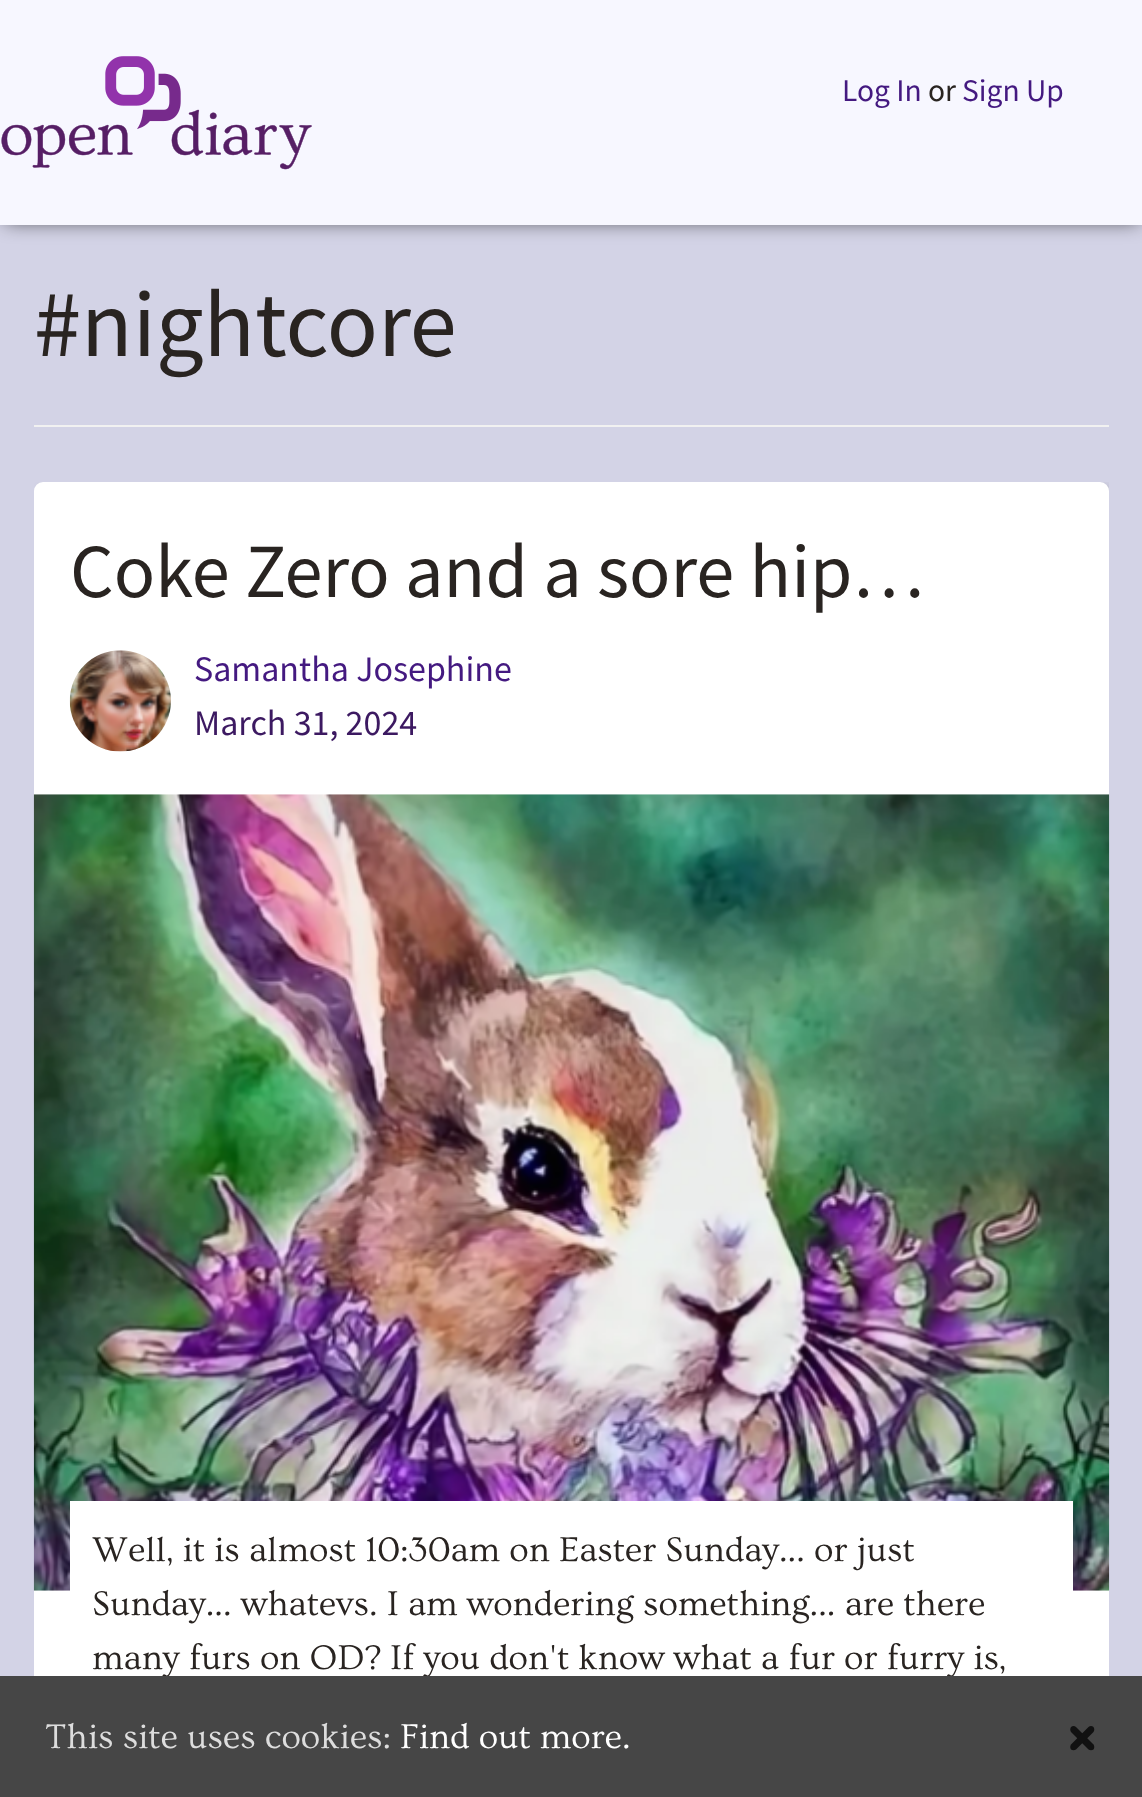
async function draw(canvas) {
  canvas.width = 1142
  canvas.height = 1797
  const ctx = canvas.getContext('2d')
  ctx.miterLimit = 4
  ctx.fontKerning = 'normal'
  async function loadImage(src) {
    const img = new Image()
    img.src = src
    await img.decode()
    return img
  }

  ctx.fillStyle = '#d3d3e6'
  ctx.fillRect(0, 0, 1142, 1797)
  ctx.fillStyle = '#000000b3'
  ctx.filter = 'blur(10px)'
  ctx.beginPath()
  ctx.rect(5, 5, 1134, 216)
  ctx.fill()
  ctx.filter = 'none'
  ctx.fillStyle = '#f7f7ff'
  ctx.fillRect(0, 0, 1142, 225)
  ctx.drawImage(await loadImage('image0.png'), 1, 56, 311, 114)
  ctx.font = '31.5px Source Sans Pro'
  ctx.fillStyle = '#441980'
  ctx.fillText('Log In', 842, 101)
  ctx.fillStyle = '#292421'
  ctx.fillText('or', 928, 101)
  ctx.fillStyle = '#441980'
  ctx.fillText('Sign Up', 962, 101)
  ctx.fillStyle = '#f1f1f1'
  ctx.fillRect(34, 425, 1075, 2)
  ctx.font = '94.5px Source Sans Pro'
  ctx.fillStyle = '#292421'
  ctx.fillText('#nightcore', 34, 356)
  ctx.save()
  ctx.beginPath()
  ctx.rect(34, 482, 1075, 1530)
  ctx.clip()
  ctx.fillStyle = '#00000026'
  ctx.filter = 'blur(4.5px)'
  ctx.beginPath()
  ctx.roundRect(38, 486, 1076, 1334, 9)
  ctx.fill()
  ctx.filter = 'none'
  ctx.restore()
  ctx.fillStyle = '#fff'
  ctx.beginPath()
  ctx.roundRect(34, 482, 1075, 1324, 9)
  ctx.fill()
  ctx.font = '76.5px Source Sans Pro'
  ctx.fillStyle = '#292421'
  ctx.fillText('Coke Zero and a sore hip…', 70, 597)
  ctx.drawImage(await loadImage('image1.png'), 69, 650, 102, 102)
  ctx.font = '36px Source Sans Pro'
  ctx.fillStyle = '#441980'
  ctx.fillText('Samantha Josephine', 194, 681)
  ctx.fillStyle = '#3c1961'
  ctx.fillText('March 31, 2024', 194, 735)
  ctx.drawImage(await loadImage('image2.png'), 33, 794, 1077, 797)
  ctx.fillStyle = '#fff'
  ctx.fillRect(70, 1501, 1003, 90)
  ctx.font = '36px Ovo'
  ctx.fillStyle = '#292421'
  ctx.fillText('Well, it is almost 10:30am on Easter Sunday... or just', 92, 1561)
  ctx.fillText('Sunday... whatevs. I am wondering something... are there', 92, 1615)
  ctx.fillText('many furs on OD? If you don\'t know what a fur or furry is,', 92, 1669)
  ctx.fillStyle = '#464646'
  ctx.fillRect(0, 1676, 1142, 121)
  ctx.fillStyle = '#ddd'
  ctx.fillText('This site uses cookies:', 45, 1748)
  ctx.fillStyle = '#fff'
  ctx.fillText('Find out more.', 400, 1748)
  ctx.fillStyle = '#111'
  ctx.beginPath()
  ctx.moveTo(1076, 1727)
  ctx.lineTo(1093.5, 1744.5)
  ctx.bezierCurveTo(1094.5, 1746, 1094.5, 1748, 1093.5, 1749.5)
  ctx.bezierCurveTo(1092, 1750.5, 1090, 1750.5, 1088.5, 1749.5)
  ctx.lineTo(1071, 1732)
  ctx.bezierCurveTo(1070, 1730.5, 1070, 1728.5, 1071, 1727)
  ctx.bezierCurveTo(1072.5, 1725.5, 1074.5, 1725.5, 1076, 1727)
  ctx.closePath()
  ctx.fill()
  ctx.beginPath()
  ctx.moveTo(1071, 1744.5)
  ctx.lineTo(1088.5, 1727)
  ctx.bezierCurveTo(1090, 1725.5, 1092, 1725.5, 1093.5, 1727)
  ctx.bezierCurveTo(1094.5, 1728.5, 1094.5, 1730.5, 1093.5, 1732)
  ctx.lineTo(1076, 1749.5)
  ctx.bezierCurveTo(1074.5, 1750.5, 1072.5, 1750.5, 1071, 1749.5)
  ctx.bezierCurveTo(1070, 1748, 1070, 1746, 1071, 1744.5)
  ctx.closePath()
  ctx.fill()
}

draw(document.querySelector('canvas'))
